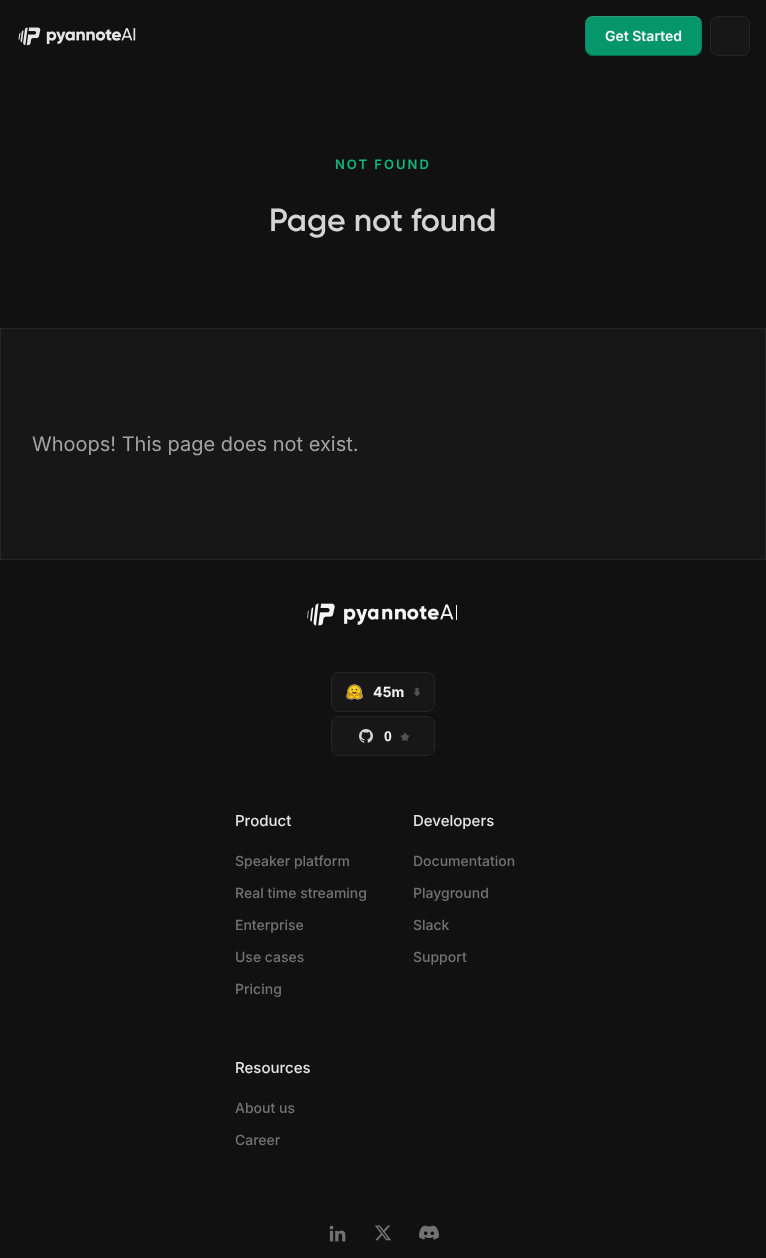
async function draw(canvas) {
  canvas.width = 766
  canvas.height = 1258
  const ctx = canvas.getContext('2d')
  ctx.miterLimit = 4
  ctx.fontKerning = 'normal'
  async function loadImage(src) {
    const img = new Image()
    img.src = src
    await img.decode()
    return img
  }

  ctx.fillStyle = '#111'
  ctx.fillRect(0, 0, 766, 1258)
  ctx.drawImage(await loadImage('image0.png'), 18, 27, 118, 19)
  ctx.fillStyle = '#059669'
  ctx.beginPath()
  ctx.roundRect(585, 16, 117, 40, 8)
  ctx.fill()
  ctx.save()
  ctx.beginPath()
  ctx.rect(585, 16, 165, 40)
  ctx.clip()
  ctx.fillStyle = '#ffffff33'
  ctx.beginPath()
  ctx.moveTo(593, 17)
  ctx.lineTo(694, 17)
  ctx.bezierCurveTo(698, 17, 702, 21, 702, 25)
  ctx.bezierCurveTo(702, 12, 685, 16, 677, 16)
  ctx.lineTo(610, 16)
  ctx.bezierCurveTo(602, 16, 585, 12, 585, 25)
  ctx.bezierCurveTo(585, 21, 589, 17, 593, 17)
  ctx.closePath()
  ctx.fill()
  ctx.fillStyle = '#00000033'
  ctx.beginPath()
  ctx.moveTo(585, 47)
  ctx.bezierCurveTo(585, 60, 602, 56, 610, 56)
  ctx.lineTo(677, 56)
  ctx.bezierCurveTo(685, 56, 702, 60, 702, 47)
  ctx.bezierCurveTo(702, 51, 698, 55, 694, 55)
  ctx.lineTo(593, 55)
  ctx.bezierCurveTo(589, 55, 585, 51, 585, 47)
  ctx.closePath()
  ctx.fill()
  ctx.restore()
  ctx.beginPath()
  ctx.roundRect(585.5, 16.5, 116, 39, 7.5)
  ctx.strokeStyle = '#0000001a'
  ctx.stroke()
  ctx.font = '600 14px Inter'
  ctx.fillStyle = '#fafafa'
  ctx.fillText('Get Started', 605, 41)
  ctx.fillStyle = '#171717'
  ctx.beginPath()
  ctx.roundRect(710.5, 16.5, 39, 39, 7.5)
  ctx.fill()
  ctx.strokeStyle = '#262626'
  ctx.stroke()
  ctx.letterSpacing = '2px'
  ctx.font = '600 13px Inter'
  ctx.fillStyle = '#10b981'
  ctx.fillText('NOT FOUND', 335, 169)
  ctx.letterSpacing = '0px'
  ctx.font = '600 32px Gilroy'
  ctx.fillStyle = '#d4d4d4'
  ctx.fillText('Page not found', 269, 231)
  ctx.fillStyle = '#171717'
  ctx.fillRect(1, 329, 764, 230)
  ctx.strokeRect(0.5, 328.5, 765, 231)
  ctx.font = '20px Inter'
  ctx.fillStyle = '#a3a3a3'
  ctx.fillText('Whoops! This page does not exist.', 32, 451)
  ctx.drawImage(await loadImage('image1.png'), 307, 610, 2, 9)
  ctx.fillStyle = '#f5f5f5'
  ctx.beginPath()
  ctx.moveTo(315.5, 606)
  ctx.bezierCurveTo(315.5, 604.5, 317, 603.5, 318.5, 603.5)
  ctx.lineTo(316, 625.5)
  ctx.bezierCurveTo(314.5, 625.5, 313.5, 624, 313.5, 622.5)
  ctx.closePath()
  ctx.fill()
  ctx.drawImage(await loadImage('image2.png'), 310, 607, 4, 15)
  ctx.drawImage(await loadImage('image3.png'), 318, 603, 17, 23)
  ctx.drawImage(await loadImage('image4.png'), 344, 608, 12, 16)
  ctx.drawImage(await loadImage('image5.png'), 356, 609, 12, 16)
  ctx.drawImage(await loadImage('image6.png'), 367, 608, 12, 12)
  ctx.drawImage(await loadImage('image7.png'), 382, 608, 11, 12)
  ctx.drawImage(await loadImage('image8.png'), 395, 608, 11, 12)
  ctx.drawImage(await loadImage('image9.png'), 407, 608, 12, 12)
  ctx.drawImage(await loadImage('image10.png'), 419, 605, 8, 15)
  ctx.drawImage(await loadImage('image11.png'), 427, 608, 12, 12)
  ctx.drawImage(await loadImage('image12.png'), 440, 604, 14, 16)
  ctx.fillRect(456, 605, 1, 15)
  ctx.fillStyle = '#171717'
  ctx.beginPath()
  ctx.roundRect(331, 672, 104, 40, 8)
  ctx.fill()
  ctx.drawImage(await loadImage('image13.png'), 346, 684, 17, 16)
  ctx.drawImage(await loadImage('image14.png'), 413, 687, 8, 9)
  ctx.beginPath()
  ctx.roundRect(331.5, 672.5, 103, 39, 7.5)
  ctx.stroke()
  ctx.font = 'bold 14px Inter'
  ctx.fillStyle = '#f4f4f4'
  ctx.fillText('45m', 373, 697)
  ctx.fillStyle = '#171717'
  ctx.beginPath()
  ctx.roundRect(331, 716, 104, 40, 8)
  ctx.fill()
  ctx.drawImage(await loadImage('image15.png'), 359, 729, 14, 14)
  ctx.drawImage(await loadImage('image16.png'), 400, 732, 10, 9)
  ctx.beginPath()
  ctx.roundRect(331.5, 716.5, 103, 39, 7.5)
  ctx.stroke()
  ctx.font = 'bold 14px Liberation Sans'
  ctx.fillStyle = '#f4f4f4'
  ctx.fillText('0', 384, 741)
  ctx.font = '500 15px Inter'
  ctx.fillStyle = '#e5e5e5'
  ctx.fillText('Product', 235, 826)
  ctx.font = '500 14px Inter'
  ctx.fillStyle = '#737373'
  ctx.fillText('Speaker platform', 235, 866)
  ctx.fillText('Real time streaming', 235, 898)
  ctx.fillText('Enterprise', 235, 930)
  ctx.fillText('Use cases', 235, 962)
  ctx.fillText('Pricing', 235, 994)
  ctx.font = '500 15px Inter'
  ctx.fillStyle = '#e5e5e5'
  ctx.fillText('Developers', 413, 826)
  ctx.font = '500 14px Inter'
  ctx.fillStyle = '#737373'
  ctx.fillText('Documentation', 413, 866)
  ctx.fillText('Playground', 413, 898)
  ctx.fillText('Slack', 413, 930)
  ctx.fillText('Support', 413, 962)
  ctx.font = '500 15px Inter'
  ctx.fillStyle = '#e5e5e5'
  ctx.fillText('Resources', 235, 1073)
  ctx.font = '500 14px Inter'
  ctx.fillStyle = '#737373'
  ctx.fillText('About us', 235, 1113)
  ctx.fillText('Career', 235, 1145)
  ctx.drawImage(await loadImage('image17.png'), 329, 1225, 17, 17)
  ctx.drawImage(await loadImage('image18.png'), 375, 1225, 17, 16)
  ctx.drawImage(await loadImage('image19.png'), 419, 1225, 20, 15)
}

draw(document.querySelector('canvas'))
